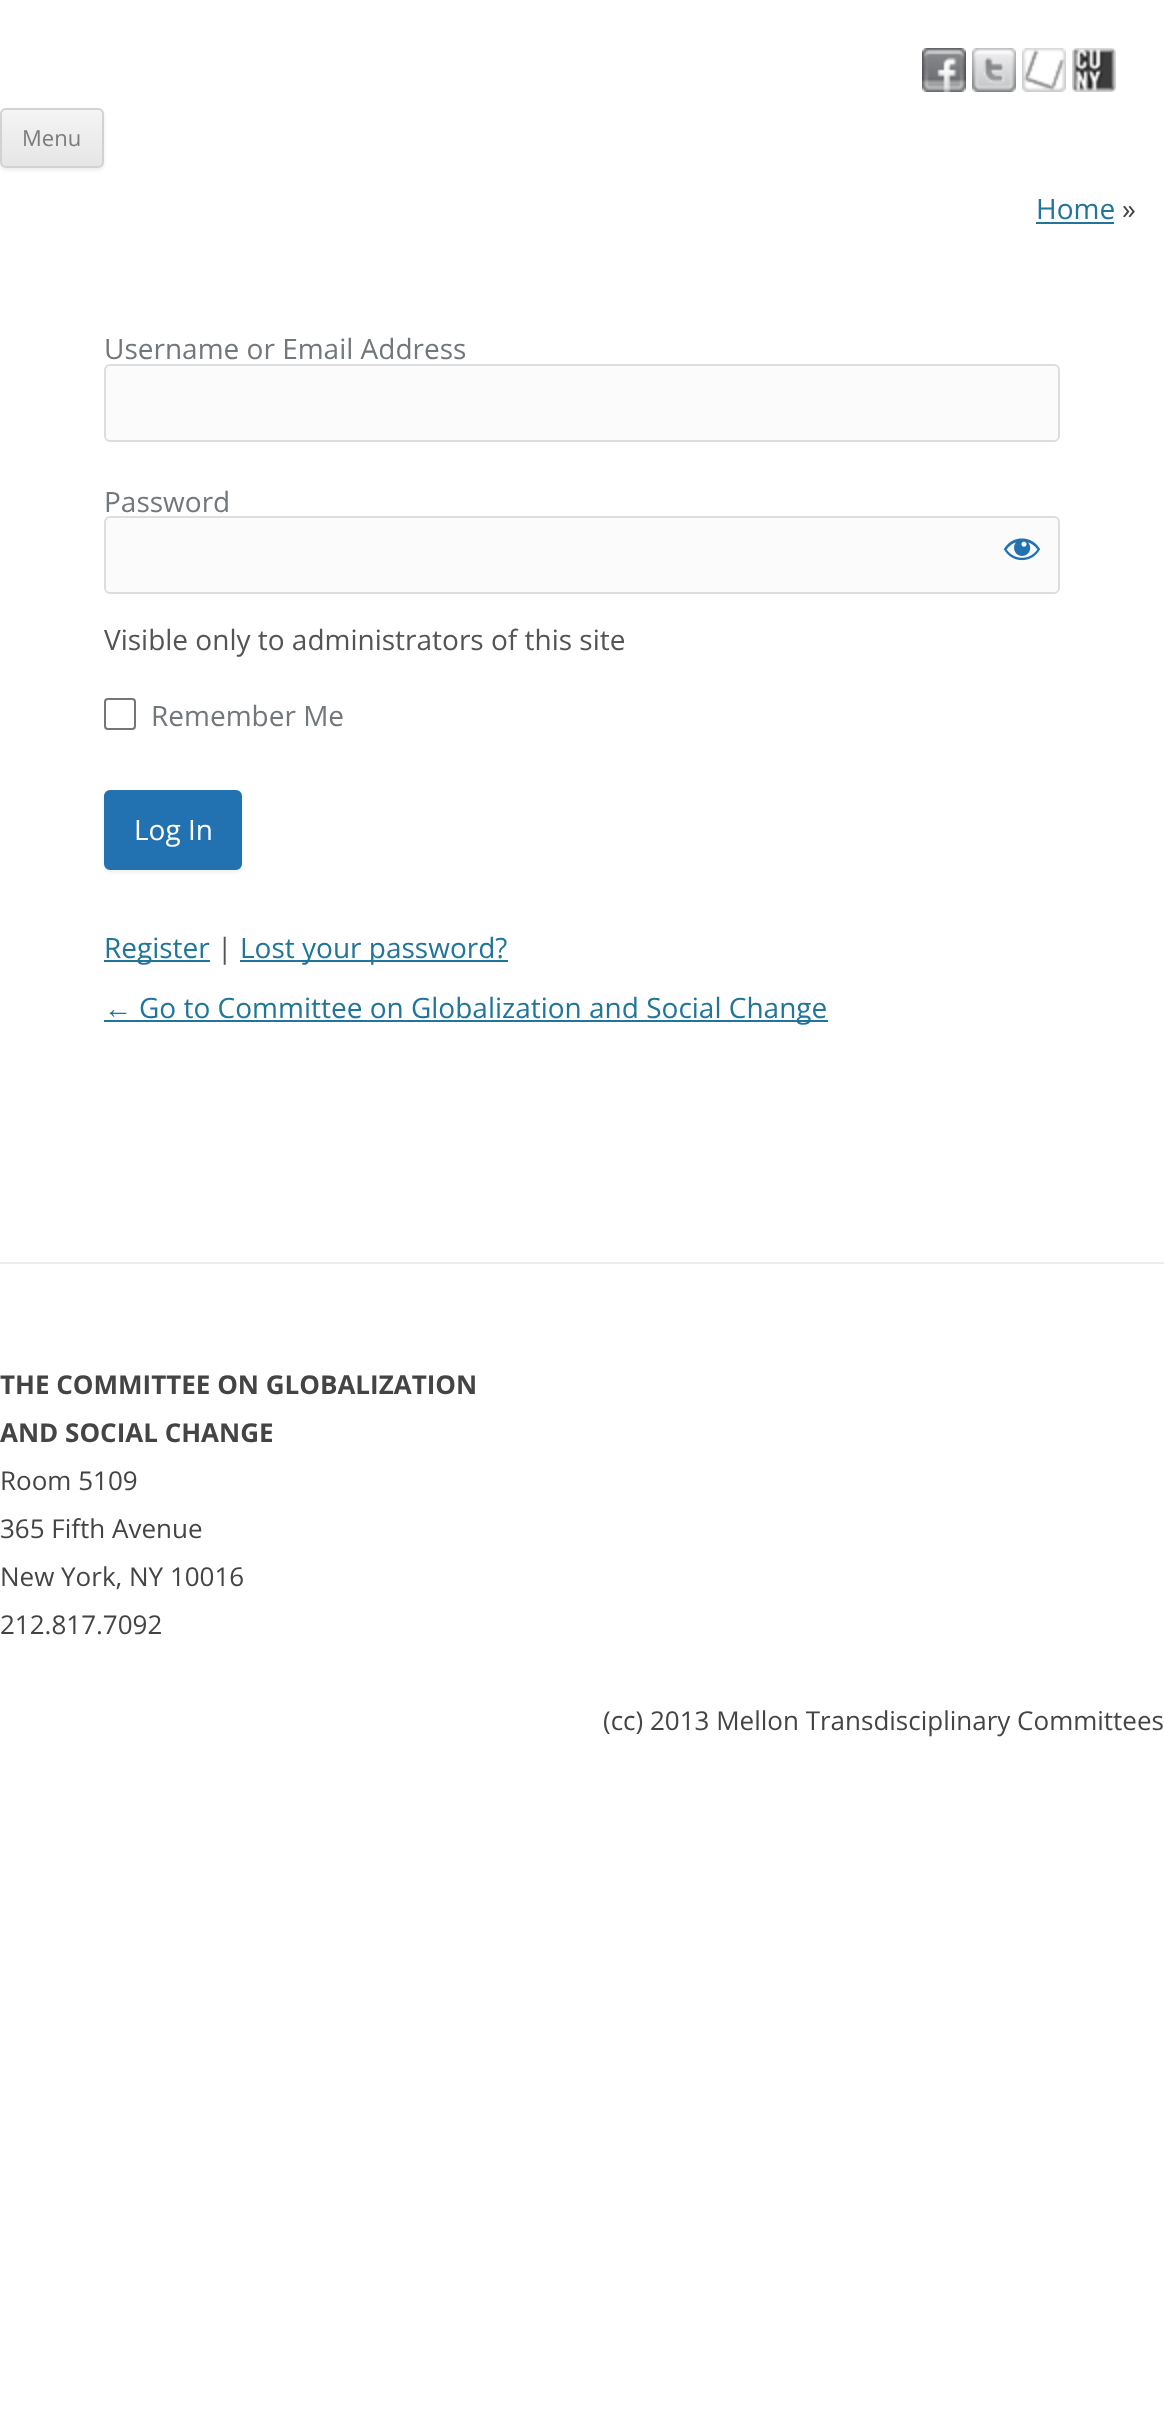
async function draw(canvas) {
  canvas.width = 1164
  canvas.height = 2415
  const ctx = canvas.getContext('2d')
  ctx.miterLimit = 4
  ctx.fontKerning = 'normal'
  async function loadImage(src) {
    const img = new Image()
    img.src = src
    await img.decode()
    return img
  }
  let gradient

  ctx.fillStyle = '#fff'
  ctx.fillRect(0, 0, 1164, 2415)
  ctx.drawImage(await loadImage('image0.png'), 922, 48, 44, 44)
  ctx.drawImage(await loadImage('image1.png'), 972, 48, 44, 44)
  ctx.drawImage(await loadImage('image2.png'), 1022, 48, 44, 44)
  ctx.drawImage(await loadImage('image3.png'), 1072, 48, 44, 44)
  ctx.fillStyle = '#4040401a'
  ctx.filter = 'blur(2px)'
  ctx.beginPath()
  ctx.roundRect(0, 110, 104, 60, 6)
  ctx.fill()
  ctx.filter = 'none'
  ctx.save()
  ctx.beginPath()
  ctx.roundRect(0, 108, 104, 60, 6)
  ctx.clip()
  gradient = ctx.createLinearGradient(52, 110, 52, 166)
  gradient.addColorStop(0, '#f4f4f4')
  gradient.addColorStop(1, '#e6e6e6')
  ctx.fillStyle = gradient
  ctx.fillRect(0, 110, 104, 56)
  ctx.restore()
  ctx.beginPath()
  ctx.roundRect(1, 109, 102, 58, 5)
  ctx.strokeStyle = '#d2d2d2'
  ctx.lineWidth = 2
  ctx.stroke()
  ctx.font = '22px Open Sans'
  ctx.fillStyle = '#7c7c7c'
  ctx.fillText('Menu', 22, 146)
  ctx.font = '28px Open Sans'
  ctx.fillStyle = '#21759b'
  ctx.fillText('Home', 1036, 219)
  ctx.fillRect(1036, 222, 78, 2)
  ctx.fillStyle = '#444'
  ctx.fillText('»', 1122, 219)
  ctx.fillStyle = '#72777c'
  ctx.fillText('Username or Email Address', 104, 359)
  ctx.fillStyle = '#fbfbfb'
  ctx.beginPath()
  ctx.roundRect(105, 365, 954, 76, 5)
  ctx.fill()
  ctx.strokeStyle = '#ddd'
  ctx.stroke()
  ctx.fillStyle = '#72777c'
  ctx.fillText('Password', 104, 512)
  ctx.fillStyle = '#fbfbfb'
  ctx.beginPath()
  ctx.roundRect(105, 517, 954, 76, 5)
  ctx.fill()
  ctx.stroke()
  ctx.drawImage(await loadImage('image4.png'), 1003, 538, 38, 23)
  ctx.fillStyle = '#545454'
  ctx.fillText('Visible only to administrators of this site', 104, 650)
  ctx.beginPath()
  ctx.roundRect(105, 699, 30, 30, 3)
  ctx.strokeStyle = '#767676'
  ctx.stroke()
  ctx.fillStyle = '#72777c'
  ctx.fillText('Remember Me', 151, 726)
  ctx.fillStyle = '#4040401a'
  ctx.filter = 'blur(2px)'
  ctx.beginPath()
  ctx.roundRect(104, 792, 138, 80, 6)
  ctx.fill()
  ctx.filter = 'none'
  ctx.fillStyle = '#2271b1'
  ctx.beginPath()
  ctx.roundRect(105, 791, 136, 78, 5)
  ctx.fill()
  ctx.strokeStyle = '#2271b1'
  ctx.stroke()
  ctx.fillStyle = '#fff'
  ctx.fillText('Log In', 134, 840)
  ctx.fillStyle = '#21759b'
  ctx.fillRect(104, 960, 106, 2)
  ctx.fillText('Register', 104, 958)
  ctx.fillStyle = '#545454'
  ctx.fillText('|', 217, 958)
  ctx.fillStyle = '#21759b'
  ctx.fillRect(240, 960, 268, 2)
  ctx.fillText('Lost your password?', 240, 958)
  ctx.font = '28px Liberation Sans'
  ctx.fillText('←', 104, 1018)
  ctx.fillRect(104, 1020, 724, 2)
  ctx.font = '28px Open Sans'
  ctx.fillText('Go to Committee on Globalization and Social Change', 139, 1018)
  ctx.fillStyle = '#ededed'
  ctx.fillRect(0, 1262, 1164, 2)
  ctx.font = 'bold 26px Open Sans'
  ctx.fillStyle = '#444'
  ctx.fillText('THE COMMITTEE ON GLOBALIZATION', 0, 1394)
  ctx.fillText('AND SOCIAL CHANGE', 0, 1442)
  ctx.font = '26px Open Sans'
  ctx.fillText('Room 5109', 0, 1490)
  ctx.fillText('365 Fifth Avenue', 0, 1538)
  ctx.fillText('New York, NY 10016', 0, 1586)
  ctx.fillText('212.817.7092', 0, 1634)
  ctx.fillText('(cc) 2013 Mellon Transdisciplinary Committees', 603, 1730)
}

draw(document.querySelector('canvas'))
